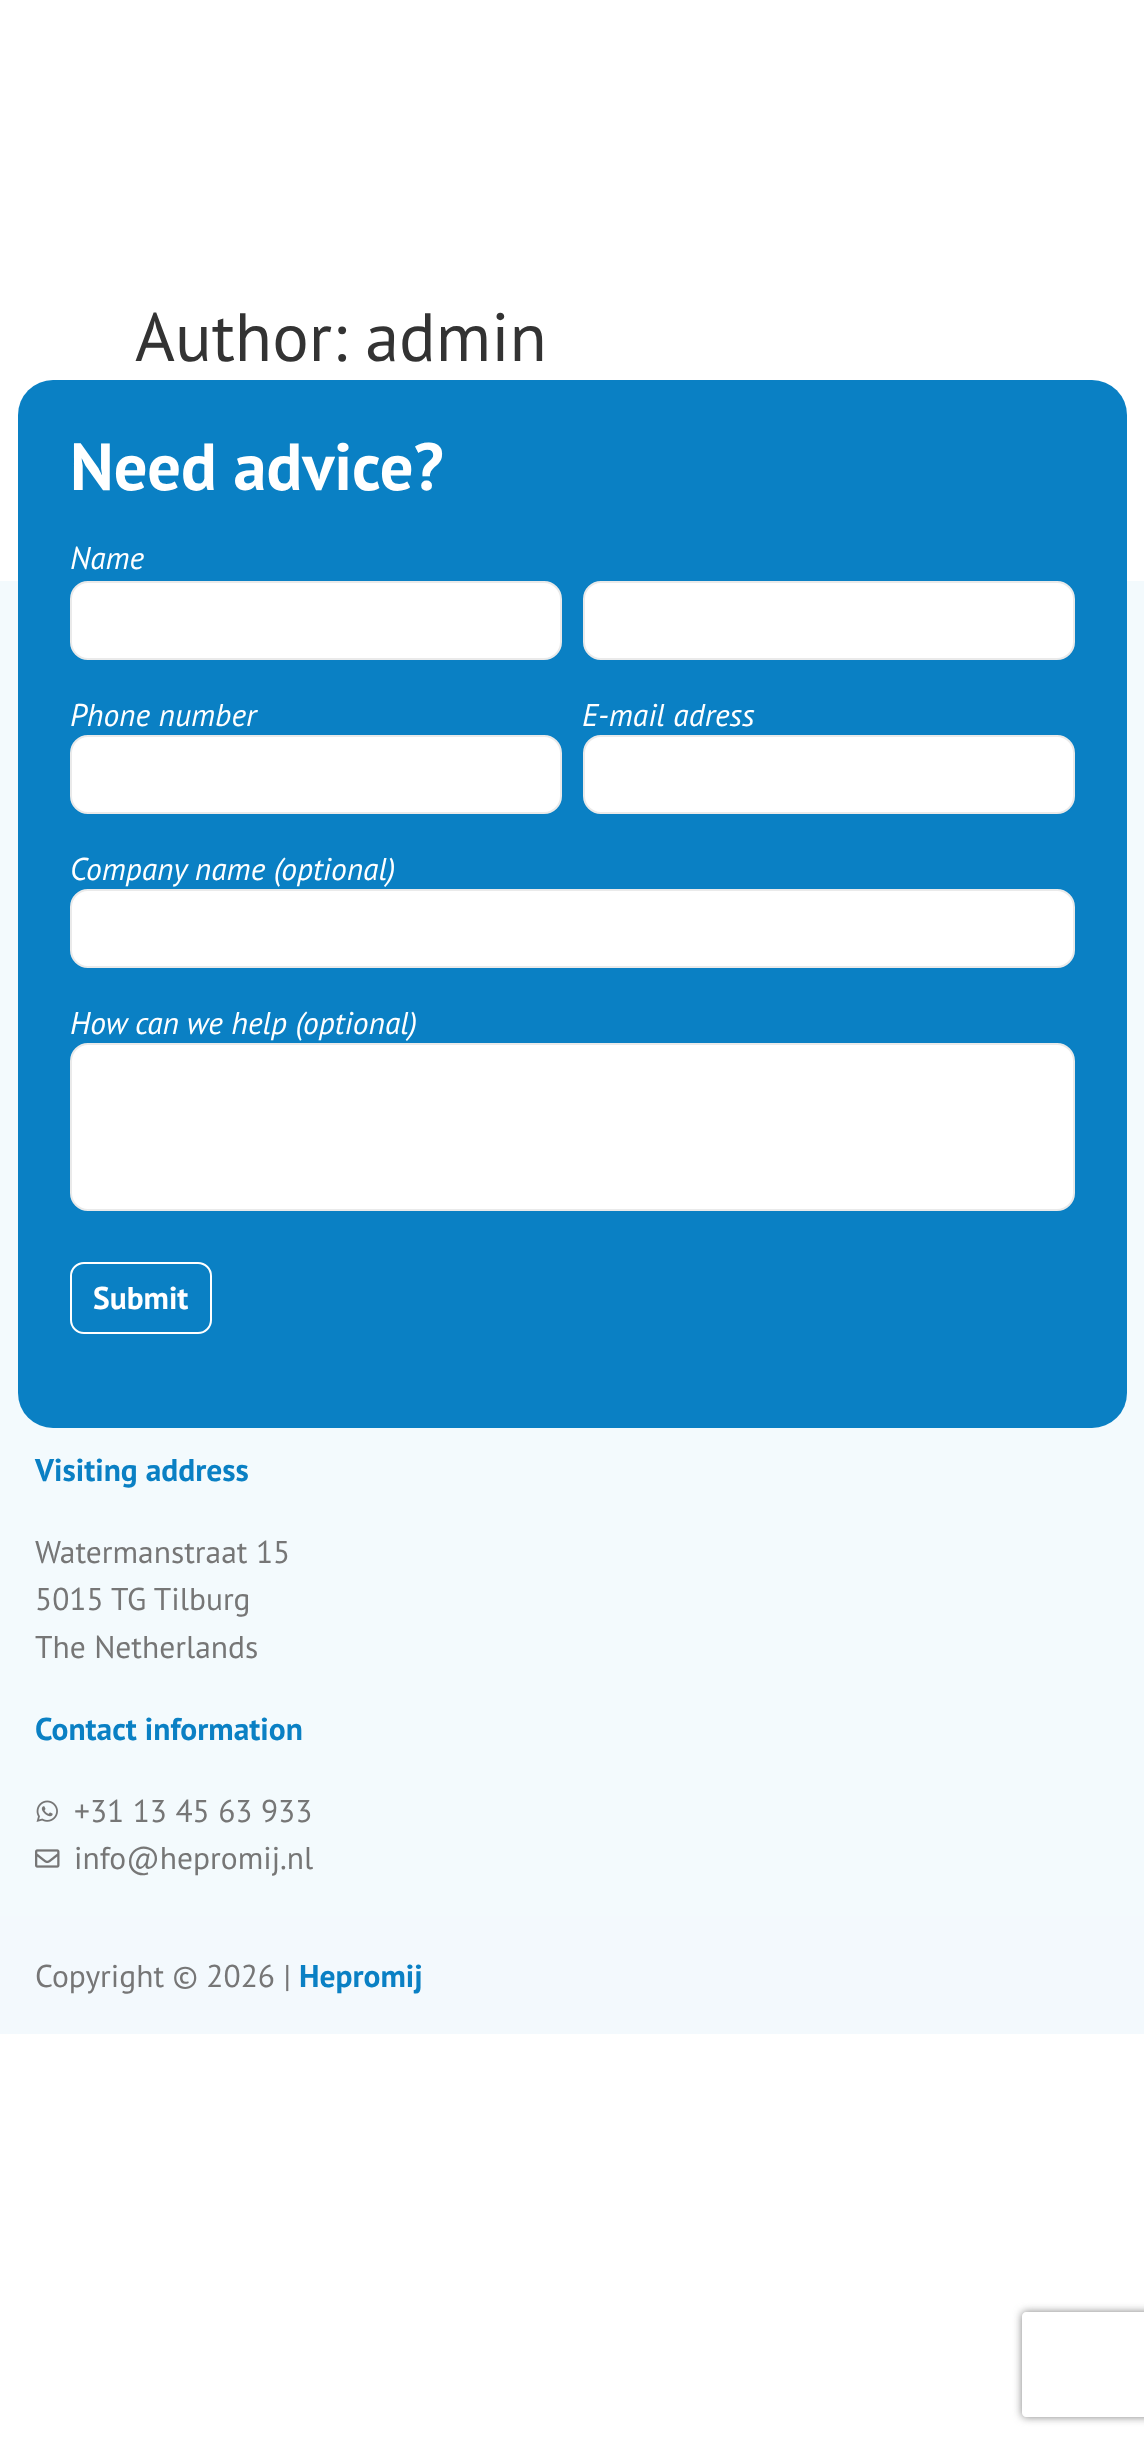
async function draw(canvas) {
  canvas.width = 1144
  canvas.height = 2440
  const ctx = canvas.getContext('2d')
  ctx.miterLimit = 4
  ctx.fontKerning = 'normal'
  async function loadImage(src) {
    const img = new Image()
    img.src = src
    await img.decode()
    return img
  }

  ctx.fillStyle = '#fff'
  ctx.fillRect(0, 0, 1144, 2440)
  ctx.font = '68.25px PT Sans'
  ctx.fillStyle = '#333'
  ctx.fillText('Author: admin', 135, 361)
  ctx.fillStyle = '#f3fafd'
  ctx.fillRect(0, 581, 1144, 1335)
  ctx.fillStyle = '#0a80c4'
  ctx.beginPath()
  ctx.roundRect(18, 380, 1109, 1048, 35)
  ctx.fill()
  ctx.font = 'bold 66.5px PT Sans'
  ctx.fillStyle = '#fff'
  ctx.fillText('Need advice?', 70, 490)
  ctx.font = 'italic 31.5px PT Sans'
  ctx.fillText('Name', 70, 569)
  ctx.beginPath()
  ctx.roundRect(71, 582, 490, 77, 17)
  ctx.fill()
  ctx.strokeStyle = '#eaeaea'
  ctx.lineWidth = 2
  ctx.stroke()
  ctx.beginPath()
  ctx.roundRect(584, 582, 490, 77, 17)
  ctx.fill()
  ctx.stroke()
  ctx.fillText('Phone number', 70, 726)
  ctx.beginPath()
  ctx.roundRect(71, 736, 490, 77, 17)
  ctx.fill()
  ctx.stroke()
  ctx.fillText('E-mail adress', 582, 726)
  ctx.beginPath()
  ctx.roundRect(584, 736, 490, 77, 17)
  ctx.fill()
  ctx.stroke()
  ctx.fillText('Company name (optional)', 70, 880)
  ctx.beginPath()
  ctx.roundRect(71, 890, 1003, 77, 17)
  ctx.fill()
  ctx.stroke()
  ctx.fillText('How can we help (optional)', 70, 1034)
  ctx.beginPath()
  ctx.roundRect(71, 1044, 1003, 166, 17)
  ctx.fill()
  ctx.stroke()
  ctx.beginPath()
  ctx.roundRect(71, 1263, 140, 70, 13)
  ctx.strokeStyle = '#fff'
  ctx.stroke()
  ctx.font = 'bold 31.5px PT Sans'
  ctx.fillText('Submit', 93, 1309)
  ctx.fillStyle = '#0a80c4'
  ctx.fillText('Visiting address', 35, 1481)
  ctx.font = '31.5px PT Sans'
  ctx.fillStyle = '#767676'
  ctx.fillText('Watermanstraat 15', 35, 1563)
  ctx.fillText('5015 TG Tilburg', 35, 1610)
  ctx.fillText('The Netherlands', 35, 1658)
  ctx.font = 'bold 31.5px PT Sans'
  ctx.fillStyle = '#0a80c4'
  ctx.fillText('Contact information', 35, 1740)
  ctx.drawImage(await loadImage('image0.png'), 36, 1800, 22, 22)
  ctx.font = '31.5px PT Sans'
  ctx.fillStyle = '#767676'
  ctx.fillText('+31 13 45 63 933', 74, 1822)
  ctx.drawImage(await loadImage('image1.png'), 35, 1849, 25, 19)
  ctx.fillText('info@hepromij.nl', 74, 1869)
  ctx.fillStyle = '#f3f9fd'
  ctx.fillRect(0, 1916, 1144, 118)
  ctx.fillStyle = '#767676'
  ctx.fillText('Copyright © 2026 |', 35, 1987)
  ctx.font = 'bold 31.5px PT Sans'
  ctx.fillStyle = '#0a80c4'
  ctx.fillText('Hepromij', 299, 1987)
  ctx.save()
  ctx.beginPath()
  ctx.moveTo(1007, 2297)
  ctx.lineTo(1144, 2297)
  ctx.lineTo(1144, 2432)
  ctx.lineTo(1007, 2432)
  ctx.closePath()
  ctx.moveTo(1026, 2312)
  ctx.lineTo(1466, 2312)
  ctx.bezierCurveTo(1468, 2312, 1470, 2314, 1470, 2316)
  ctx.lineTo(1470, 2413)
  ctx.bezierCurveTo(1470, 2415, 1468, 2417, 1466, 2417)
  ctx.lineTo(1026, 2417)
  ctx.bezierCurveTo(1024, 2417, 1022, 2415, 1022, 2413)
  ctx.lineTo(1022, 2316)
  ctx.bezierCurveTo(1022, 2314, 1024, 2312, 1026, 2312)
  ctx.closePath()
  ctx.clip('evenodd')
  ctx.fillStyle = '#808080'
  ctx.filter = 'blur(4.5px)'
  ctx.beginPath()
  ctx.roundRect(1022, 2312, 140, 105, 4)
  ctx.fill()
  ctx.filter = 'none'
  ctx.restore()
}

draw(document.querySelector('canvas'))
